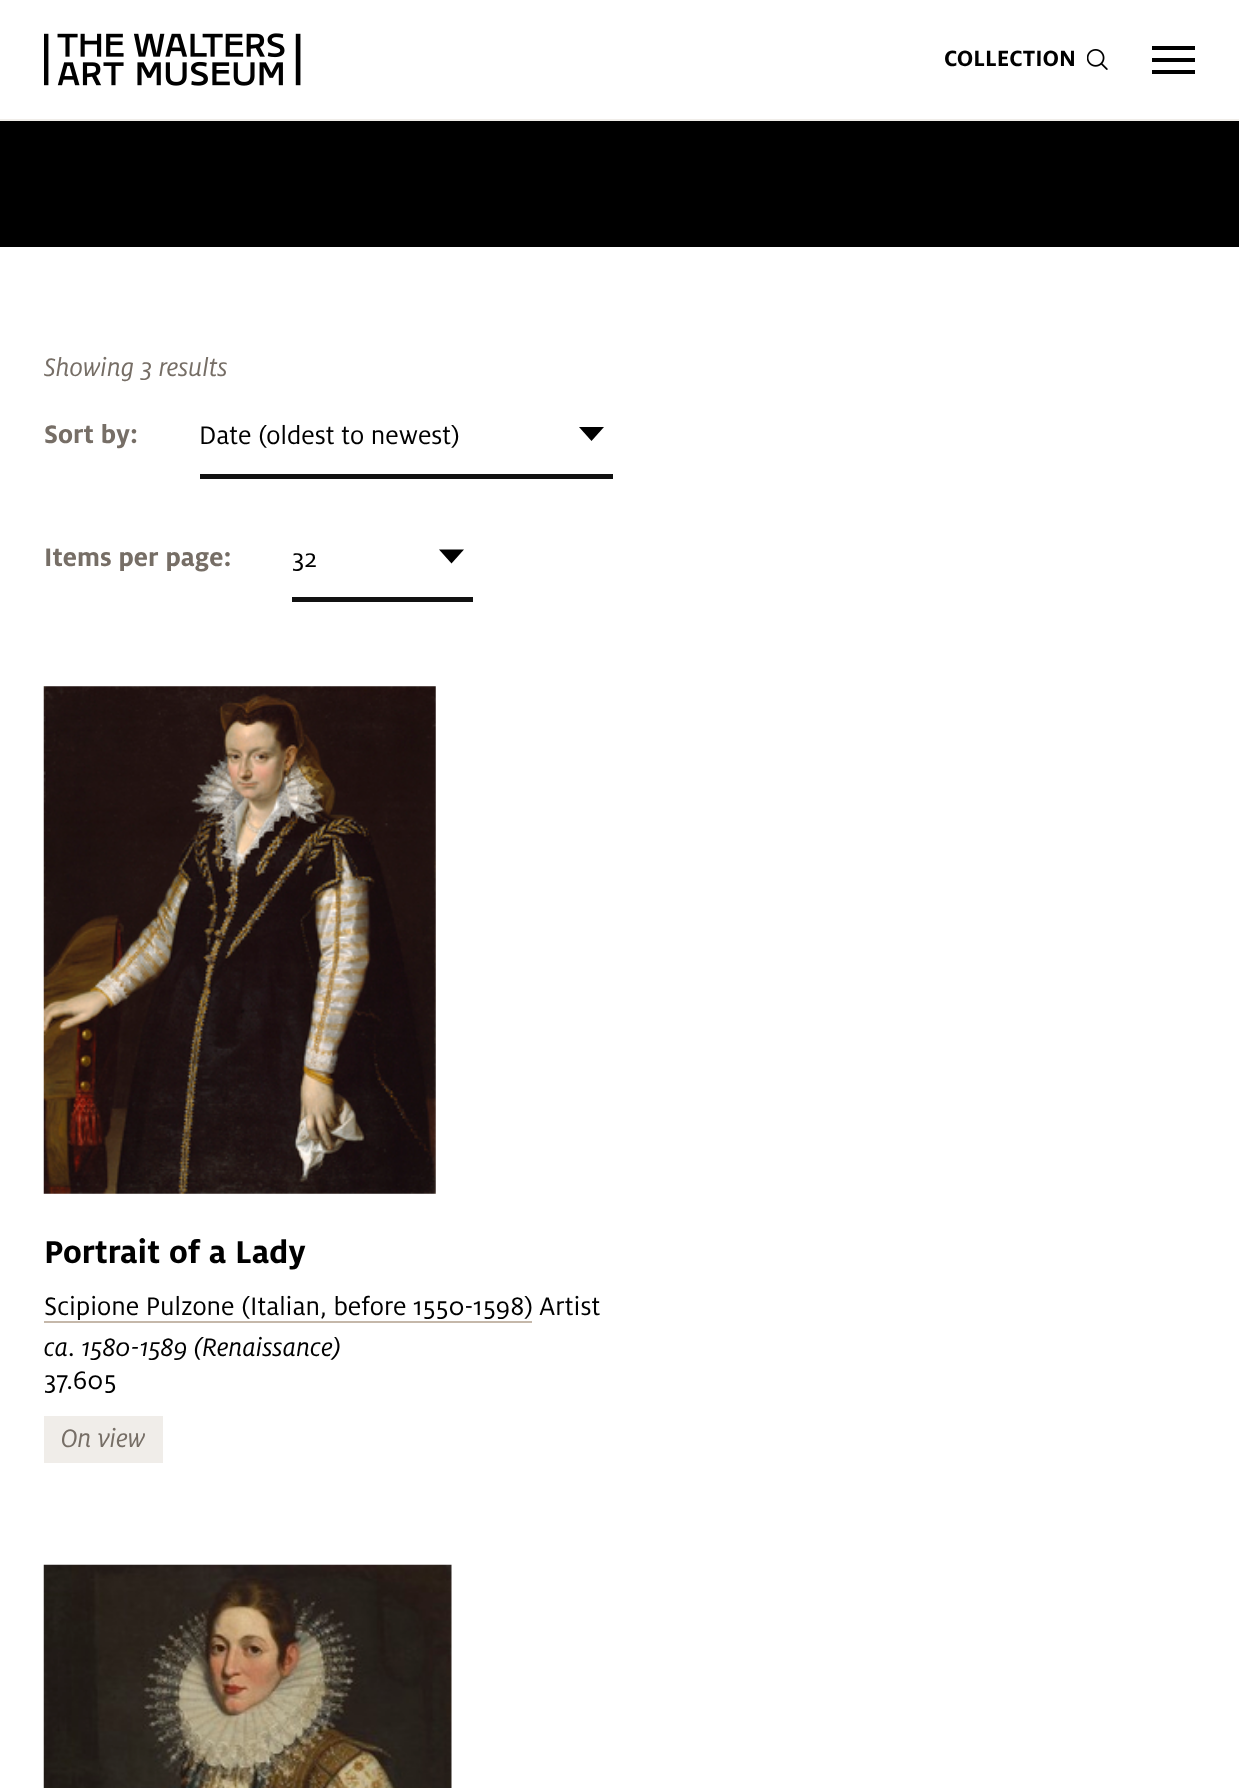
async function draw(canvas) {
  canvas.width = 1239
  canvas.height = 1788
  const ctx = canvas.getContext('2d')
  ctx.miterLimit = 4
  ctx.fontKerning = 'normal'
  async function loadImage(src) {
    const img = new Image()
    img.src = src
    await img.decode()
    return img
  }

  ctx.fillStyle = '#fff'
  ctx.fillRect(0, 0, 1239, 1788)
  ctx.fillStyle = '#f0ede9'
  ctx.fillRect(0, 119, 1239, 2)
  ctx.drawImage(await loadImage('image0.png'), 44, 33, 257, 53)
  ctx.font = 'bold 24.5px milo'
  ctx.fillStyle = '#000'
  ctx.fillText('COLLECTION', 944, 66)
  ctx.drawImage(await loadImage('image1.png'), 1087, 49, 21, 21)
  ctx.fillRect(1152, 46, 43, 4)
  ctx.fillRect(1152, 58, 43, 4)
  ctx.fillRect(1152, 70, 43, 4)
  ctx.fillRect(0, 121, 1239, 126)
  ctx.font = 'italic 28px milo'
  ctx.fillStyle = '#766e66'
  ctx.fillText('Showing 3 results', 44, 376)
  ctx.font = 'bold 28px milo'
  ctx.fillText('Sort by:', 44, 443)
  ctx.fillStyle = '#111'
  ctx.fillRect(200, 474, 413, 5)
  ctx.font = '28px milo'
  ctx.fillStyle = '#000'
  ctx.fillText('Date (oldest to newest)', 199, 444)
  ctx.beginPath()
  ctx.moveTo(579, 427)
  ctx.lineTo(604, 427)
  ctx.lineTo(591.5, 441)
  ctx.closePath()
  ctx.fill()
  ctx.font = 'bold 28px milo'
  ctx.fillStyle = '#766e66'
  ctx.fillText('Items per page:', 44, 566)
  ctx.fillStyle = '#111'
  ctx.fillRect(292, 597, 181, 5)
  ctx.font = '28px milo'
  ctx.fillStyle = '#000'
  ctx.fillText('32', 292, 567)
  ctx.beginPath()
  ctx.moveTo(439, 549.5)
  ctx.lineTo(464, 549.5)
  ctx.lineTo(451.5, 563.5)
  ctx.closePath()
  ctx.fill()
  ctx.drawImage(await loadImage('image2.png'), 43, 686, 393, 508)
  ctx.font = 'bold 35px milo'
  ctx.fillText('Portrait of a Lady', 44, 1263)
  ctx.font = '28px milo'
  ctx.fillText('Scipione Pulzone (Italian, before 1550-1598)', 44, 1315)
  ctx.fillStyle = '#c5b8aa'
  ctx.fillRect(44, 1321, 488, 2)
  ctx.fillStyle = '#000'
  ctx.fillText('Artist', 539, 1315)
  ctx.font = 'italic 28px milo'
  ctx.fillText('ca. 1580-1589 (Renaissance)', 44, 1356)
  ctx.font = '28px milo'
  ctx.fillText('37.605', 44, 1389)
  ctx.fillStyle = '#f0ede9'
  ctx.fillRect(44, 1416, 119, 47)
  ctx.font = 'italic 28px milo'
  ctx.fillStyle = '#766e66'
  ctx.fillText('On view', 61, 1447)
  ctx.drawImage(await loadImage('image3.png'), 43, 1564, 409, 224)
}

draw(document.querySelector('canvas'))
